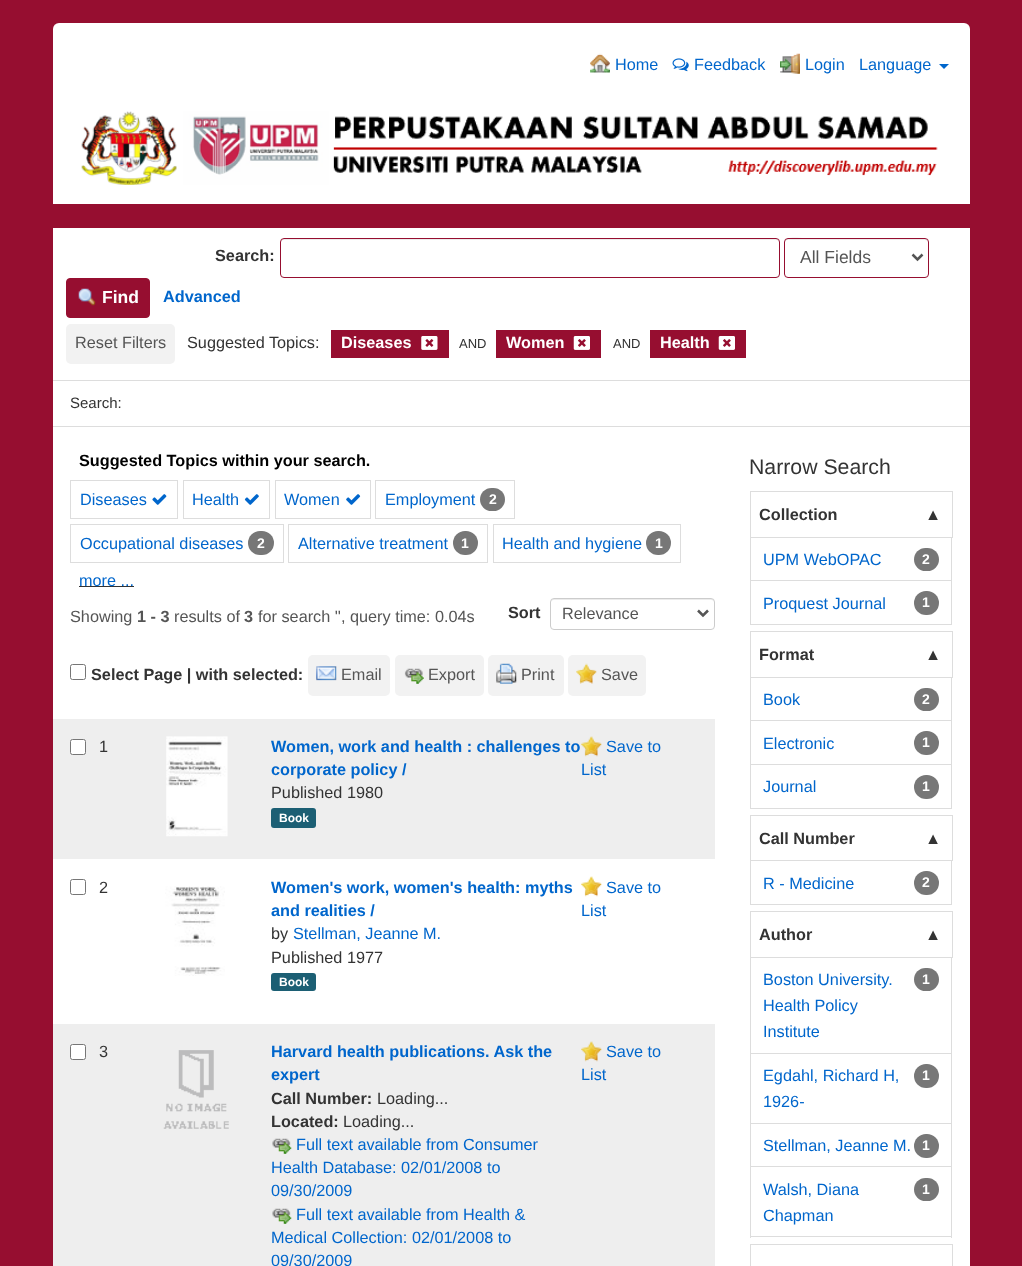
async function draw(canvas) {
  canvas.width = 1022
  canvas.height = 1266
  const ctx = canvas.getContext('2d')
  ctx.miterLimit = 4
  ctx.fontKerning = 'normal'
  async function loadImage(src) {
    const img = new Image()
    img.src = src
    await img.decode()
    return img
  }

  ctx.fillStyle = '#960e30'
  ctx.fillRect(0, 0, 1022, 1266)
  ctx.fillStyle = '#fff'
  ctx.beginPath()
  ctx.roundRect(53, 23, 917, 181, [6, 6, 0, 0])
  ctx.fill()
  ctx.drawImage(await loadImage('image0.png'), 590, 53, 20, 20)
  ctx.font = '16.25px Liberation Sans'
  ctx.fillStyle = '#06c'
  ctx.fillText('Home', 615, 70)
  ctx.drawImage(await loadImage('image1.png'), 672, 58, 17, 14)
  ctx.fillText('Feedback', 694, 70)
  ctx.drawImage(await loadImage('image2.png'), 780, 53, 20, 21)
  ctx.fillText('Login', 805, 70)
  ctx.fillText('Language', 859, 70)
  ctx.beginPath()
  ctx.moveTo(939, 64)
  ctx.lineTo(949, 64)
  ctx.lineTo(944, 69)
  ctx.closePath()
  ctx.fill()
  ctx.drawImage(await loadImage('image3.png'), 81, 111, 857, 74)
  ctx.fillStyle = '#fff'
  ctx.fillRect(53, 228, 917, 152)
  ctx.font = 'bold 16.25px Liberation Sans'
  ctx.fillStyle = '#333'
  ctx.fillText('Search:', 215, 261)
  ctx.fillStyle = '#ececec'
  ctx.beginPath()
  ctx.moveTo(284, 240)
  ctx.lineTo(776, 240)
  ctx.bezierCurveTo(778, 240, 779, 241, 779, 242)
  ctx.bezierCurveTo(779, 240, 778, 239, 776, 239)
  ctx.lineTo(284, 239)
  ctx.bezierCurveTo(282, 239, 281, 240, 281, 242)
  ctx.bezierCurveTo(281, 241, 282, 240, 284, 240)
  ctx.closePath()
  ctx.fill()
  ctx.beginPath()
  ctx.roundRect(280.5, 238.5, 499, 39, 3.5)
  ctx.strokeStyle = '#960e30'
  ctx.stroke()
  ctx.beginPath()
  ctx.moveTo(788, 240)
  ctx.lineTo(925, 240)
  ctx.bezierCurveTo(926, 240, 928, 241, 928, 242)
  ctx.lineTo(927, 240)
  ctx.lineTo(926, 239)
  ctx.lineTo(810, 239)
  ctx.bezierCurveTo(808, 239, 785, 234, 785, 242)
  ctx.bezierCurveTo(785, 241, 786, 240, 788, 240)
  ctx.closePath()
  ctx.fill()
  ctx.beginPath()
  ctx.roundRect(784.5, 238.5, 144, 39, 3.5)
  ctx.stroke()
  ctx.beginPath()
  ctx.moveTo(912.5, 254.5)
  ctx.lineTo(917.5, 259.5)
  ctx.lineTo(922.5, 254.5)
  ctx.strokeStyle = '#555'
  ctx.lineWidth = 2.5
  ctx.stroke()
  ctx.font = '17.5px Liberation Sans'
  ctx.fillStyle = '#555'
  ctx.fillText('All Fields', 800, 263)
  ctx.fillStyle = '#960e30'
  ctx.beginPath()
  ctx.roundRect(66.5, 278.5, 83, 39, 3.5)
  ctx.fill()
  ctx.strokeStyle = '#960e30'
  ctx.lineWidth = 1
  ctx.stroke()
  ctx.drawImage(await loadImage('image4.png'), 78, 288, 18, 18)
  ctx.font = 'bold 17.5px Liberation Sans'
  ctx.fillStyle = '#fff'
  ctx.fillText('Find', 102, 303)
  ctx.font = 'bold 16.25px Liberation Sans'
  ctx.fillStyle = '#06c'
  ctx.fillText('Advanced', 163, 302)
  ctx.fillStyle = '#f2f2f2'
  ctx.beginPath()
  ctx.roundRect(66, 324, 109, 40, 5)
  ctx.fill()
  ctx.font = '16.25px Liberation Sans'
  ctx.fillStyle = '#555'
  ctx.fillText('Reset Filters', 75, 348)
  ctx.fillStyle = '#333'
  ctx.fillText('Suggested Topics:', 187, 348)
  ctx.fillStyle = '#960e30'
  ctx.fillRect(331, 330, 118, 28)
  ctx.font = 'bold 16.25px Liberation Sans'
  ctx.fillStyle = '#fff'
  ctx.fillText('Diseases', 341, 348)
  ctx.drawImage(await loadImage('image5.png'), 421, 336, 17, 14)
  ctx.font = '13px Liberation Sans'
  ctx.fillStyle = '#333'
  ctx.fillText('AND', 459, 348)
  ctx.fillStyle = '#960e30'
  ctx.fillRect(496, 330, 105, 28)
  ctx.font = 'bold 16.25px Liberation Sans'
  ctx.fillStyle = '#fff'
  ctx.fillText('Women', 506, 348)
  ctx.drawImage(await loadImage('image6.png'), 573, 336, 17, 14)
  ctx.font = '13px Liberation Sans'
  ctx.fillStyle = '#333'
  ctx.fillText('AND', 613, 348)
  ctx.fillStyle = '#960e30'
  ctx.fillRect(650, 330, 96, 28)
  ctx.font = 'bold 16.25px Liberation Sans'
  ctx.fillStyle = '#fff'
  ctx.fillText('Health', 660, 348)
  ctx.drawImage(await loadImage('image6.png'), 718, 336, 17, 14)
  ctx.fillRect(53, 381, 917, 885)
  ctx.fillStyle = '#ddd'
  ctx.fillRect(53, 380, 917, 1)
  ctx.fillRect(53, 426, 917, 1)
  ctx.font = '15px Liberation Sans'
  ctx.fillStyle = '#333'
  ctx.fillText('Search:', 70, 408)
  ctx.font = 'bold 16.25px Liberation Sans'
  ctx.fillStyle = '#000'
  ctx.fillText('Suggested Topics within your search.', 79, 466)
  ctx.strokeStyle = '#ddd'
  ctx.strokeRect(70.5, 480.5, 107, 38)
  ctx.font = '16.25px Liberation Sans'
  ctx.fillStyle = '#06c'
  ctx.fillText('Diseases', 80, 505)
  ctx.drawImage(await loadImage('image7.png'), 152, 494, 15, 11)
  ctx.strokeRect(183.5, 480.5, 86, 38)
  ctx.fillText('Health', 192, 505)
  ctx.drawImage(await loadImage('image8.png'), 244, 494, 15, 11)
  ctx.strokeRect(275.5, 480.5, 95, 38)
  ctx.fillText('Women', 284, 505)
  ctx.drawImage(await loadImage('image9.png'), 346, 494, 15, 11)
  ctx.strokeRect(375.5, 480.5, 139, 38)
  ctx.fillText('Employment', 385, 505)
  ctx.fillStyle = '#777'
  ctx.beginPath()
  ctx.roundRect(480, 488, 25, 23, 11.5)
  ctx.fill()
  ctx.font = 'bold 14px Liberation Sans'
  ctx.fillStyle = '#fff'
  ctx.fillText('2', 489, 504)
  ctx.strokeRect(70.5, 524.5, 213, 38)
  ctx.font = '16.25px Liberation Sans'
  ctx.fillStyle = '#06c'
  ctx.fillText('Occupational diseases', 80, 549)
  ctx.fillStyle = '#777'
  ctx.beginPath()
  ctx.roundRect(248, 531, 26, 24, 12)
  ctx.fill()
  ctx.font = 'bold 14px Liberation Sans'
  ctx.fillStyle = '#fff'
  ctx.fillText('2', 257, 548)
  ctx.strokeRect(288.5, 524.5, 199, 38)
  ctx.font = '16.25px Liberation Sans'
  ctx.fillStyle = '#06c'
  ctx.fillText('Alternative treatment', 298, 549)
  ctx.fillStyle = '#777'
  ctx.beginPath()
  ctx.roundRect(453, 531, 25, 24, 12)
  ctx.fill()
  ctx.font = 'bold 14px Liberation Sans'
  ctx.fillStyle = '#fff'
  ctx.fillText('1', 461, 548)
  ctx.strokeRect(493.5, 524.5, 187, 38)
  ctx.font = '16.25px Liberation Sans'
  ctx.fillStyle = '#06c'
  ctx.fillText('Health and hygiene', 502, 549)
  ctx.fillStyle = '#777'
  ctx.beginPath()
  ctx.roundRect(646, 531, 25, 24, 12)
  ctx.fill()
  ctx.font = 'bold 14px Liberation Sans'
  ctx.fillStyle = '#fff'
  ctx.fillText('1', 655, 548)
  ctx.fillStyle = '#333'
  ctx.fillRect(79, 586, 55, 1)
  ctx.font = '16.25px Liberation Sans'
  ctx.fillStyle = '#06c'
  ctx.fillText('more ...', 79, 586)
  ctx.fillStyle = '#555'
  ctx.fillText('Showing', 70, 622)
  ctx.font = 'bold 16.25px Liberation Sans'
  ctx.fillText('1 - 3', 137, 622)
  ctx.font = '16.25px Liberation Sans'
  ctx.fillText('results of', 174, 622)
  ctx.font = 'bold 16.25px Liberation Sans'
  ctx.fillText('3', 244, 622)
  ctx.font = '16.25px Liberation Sans'
  ctx.fillText('for search \'\', query time: 0.04s', 258, 622)
  ctx.font = 'bold 16.25px Liberation Sans'
  ctx.fillStyle = '#333'
  ctx.fillText('Sort', 508, 618)
  ctx.fillStyle = '#ececec'
  ctx.beginPath()
  ctx.moveTo(554, 600)
  ctx.lineTo(711, 600)
  ctx.bezierCurveTo(713, 600, 714, 601, 714, 602)
  ctx.bezierCurveTo(714, 600, 713, 599, 712, 599)
  ctx.lineTo(554, 599)
  ctx.bezierCurveTo(552, 599, 551, 600, 551, 602)
  ctx.bezierCurveTo(551, 601, 552, 600, 554, 600)
  ctx.closePath()
  ctx.fill()
  ctx.beginPath()
  ctx.roundRect(550.5, 598.5, 164, 31, 3.5)
  ctx.strokeStyle = '#ccc'
  ctx.stroke()
  ctx.beginPath()
  ctx.moveTo(698, 610.5)
  ctx.lineTo(703, 615.5)
  ctx.lineTo(708, 610.5)
  ctx.strokeStyle = '#555'
  ctx.lineWidth = 2.5
  ctx.stroke()
  ctx.font = '16.25px Liberation Sans'
  ctx.fillStyle = '#555'
  ctx.fillText('Relevance', 562, 619)
  ctx.beginPath()
  ctx.roundRect(70.5, 664.5, 15, 15, 2)
  ctx.strokeStyle = '#767676'
  ctx.lineWidth = 1
  ctx.stroke()
  ctx.font = 'bold 16.25px Liberation Sans'
  ctx.fillStyle = '#333'
  ctx.fillText('Select Page | with selected:', 91, 680)
  ctx.fillStyle = '#f2f2f2'
  ctx.beginPath()
  ctx.roundRect(308, 655, 82, 41, 5)
  ctx.fill()
  ctx.drawImage(await loadImage('image10.png'), 316, 666, 21, 15)
  ctx.font = '16.25px Liberation Sans'
  ctx.fillStyle = '#555'
  ctx.fillText('Email', 341, 680)
  ctx.fillStyle = '#f2f2f2'
  ctx.beginPath()
  ctx.roundRect(395, 655, 89, 41, 5)
  ctx.fill()
  ctx.drawImage(await loadImage('image11.png'), 404, 668, 20, 16)
  ctx.fillStyle = '#555'
  ctx.fillText('Export', 428, 680)
  ctx.fillStyle = '#f2f2f2'
  ctx.beginPath()
  ctx.roundRect(488, 655, 76, 41, 5)
  ctx.fill()
  ctx.drawImage(await loadImage('image12.png'), 496, 663, 21, 21)
  ctx.fillStyle = '#555'
  ctx.fillText('Print', 521, 680)
  ctx.fillStyle = '#f2f2f2'
  ctx.beginPath()
  ctx.roundRect(568, 655, 78, 41, 5)
  ctx.fill()
  ctx.drawImage(await loadImage('image13.png'), 576, 663, 21, 21)
  ctx.fillStyle = '#555'
  ctx.fillText('Save', 601, 680)
  ctx.fillStyle = '#eee'
  ctx.fillRect(53, 719, 662, 140)
  ctx.fillStyle = '#fff'
  ctx.beginPath()
  ctx.roundRect(70.5, 739.5, 15, 15, 2)
  ctx.fill()
  ctx.stroke()
  ctx.fillStyle = '#333'
  ctx.fillText('1', 99, 752)
  ctx.drawImage(await loadImage('image14.png'), 166, 736, 62, 101)
  ctx.font = 'bold 16.25px Liberation Sans'
  ctx.fillStyle = '#06c'
  ctx.fillText('Women, work and health : challenges to', 271, 752)
  ctx.fillText('corporate policy /', 271, 775)
  ctx.font = '16.25px Liberation Sans'
  ctx.fillStyle = '#333'
  ctx.fillText('Published 1980', 271, 798)
  ctx.fillStyle = '#1c5f74'
  ctx.beginPath()
  ctx.roundRect(271, 808, 45, 20, 3)
  ctx.fill()
  ctx.font = 'bold 12px Liberation Sans'
  ctx.fillStyle = '#fff'
  ctx.fillText('Book', 279, 822)
  ctx.drawImage(await loadImage('image15.png'), 581, 736, 21, 21)
  ctx.font = '16.25px Liberation Sans'
  ctx.fillStyle = '#06c'
  ctx.fillText('Save to', 606, 752)
  ctx.fillText('List', 581, 775)
  ctx.beginPath()
  ctx.roundRect(70.5, 879.5, 15, 15, 2)
  ctx.stroke()
  ctx.fillStyle = '#333'
  ctx.fillText('2', 99, 893)
  ctx.drawImage(await loadImage('image16.png'), 165, 886, 60, 90)
  ctx.font = 'bold 16.25px Liberation Sans'
  ctx.fillStyle = '#06c'
  ctx.fillText('Women\'s work, women\'s health: myths', 271, 893)
  ctx.fillText('and realities /', 271, 916)
  ctx.font = '16.25px Liberation Sans'
  ctx.fillStyle = '#333'
  ctx.fillText('by', 271, 939)
  ctx.fillStyle = '#06c'
  ctx.fillText('Stellman, Jeanne M.', 293, 939)
  ctx.fillStyle = '#333'
  ctx.fillText('Published 1977', 271, 963)
  ctx.fillStyle = '#1c5f74'
  ctx.beginPath()
  ctx.roundRect(271, 973, 45, 18, 3)
  ctx.fill()
  ctx.font = 'bold 12px Liberation Sans'
  ctx.fillStyle = '#fff'
  ctx.fillText('Book', 279, 986)
  ctx.drawImage(await loadImage('image17.png'), 581, 876, 21, 21)
  ctx.font = '16.25px Liberation Sans'
  ctx.fillStyle = '#06c'
  ctx.fillText('Save to', 606, 893)
  ctx.fillText('List', 581, 916)
  ctx.fillStyle = '#eee'
  ctx.fillRect(53, 1024, 662, 242)
  ctx.fillStyle = '#fff'
  ctx.beginPath()
  ctx.roundRect(70.5, 1044.5, 15, 15, 2)
  ctx.fill()
  ctx.stroke()
  ctx.fillStyle = '#333'
  ctx.fillText('3', 99, 1057)
  ctx.drawImage(await loadImage('image18.png'), 163, 1050, 66, 79)
  ctx.font = 'bold 16.25px Liberation Sans'
  ctx.fillStyle = '#06c'
  ctx.fillText('Harvard health publications. Ask the', 271, 1057)
  ctx.fillText('expert', 271, 1080)
  ctx.fillStyle = '#333'
  ctx.fillText('Call Number:', 271, 1104)
  ctx.font = '16.25px Liberation Sans'
  ctx.fillText('Loading...', 377, 1104)
  ctx.font = 'bold 16.25px Liberation Sans'
  ctx.fillText('Located:', 271, 1127)
  ctx.font = '16.25px Liberation Sans'
  ctx.fillText('Loading...', 343, 1127)
  ctx.drawImage(await loadImage('image19.png'), 272, 1138, 20, 16)
  ctx.fillStyle = '#06c'
  ctx.fillText('Full text available from Consumer', 296, 1150)
  ctx.fillText('Health Database: 02/01/2008 to', 271, 1173)
  ctx.fillText('09/30/2009', 271, 1196)
  ctx.drawImage(await loadImage('image19.png'), 272, 1208, 20, 16)
  ctx.fillText('Full text available from Health &', 296, 1220)
  ctx.fillText('Medical Collection: 02/01/2008 to', 271, 1243)
  ctx.fillText('09/30/2009', 271, 1266)
  ctx.drawImage(await loadImage('image15.png'), 581, 1041, 21, 21)
  ctx.fillText('Save to', 606, 1057)
  ctx.fillText('List', 581, 1080)
  ctx.font = '21.25px Liberation Sans'
  ctx.fillStyle = '#333'
  ctx.fillText('Narrow Search', 749, 474)
  ctx.strokeStyle = '#ddd'
  ctx.strokeRect(750.5, 491.5, 202, 46)
  ctx.font = 'bold 16.25px Liberation Sans'
  ctx.fillText('Collection', 759, 520)
  ctx.fillText('▲', 925, 520)
  ctx.fillStyle = '#ddd'
  ctx.fillRect(951, 538, 1, 87)
  ctx.fillRect(750, 538, 1, 87)
  ctx.fillRect(751, 580, 200, 1)
  ctx.font = '16.25px Liberation Sans'
  ctx.fillStyle = '#06c'
  ctx.fillText('UPM WebOPAC', 763, 565)
  ctx.fillStyle = '#777'
  ctx.beginPath()
  ctx.roundRect(914, 548, 25, 23, 11.5)
  ctx.fill()
  ctx.font = 'bold 14px Liberation Sans'
  ctx.fillStyle = '#fff'
  ctx.fillText('2', 922, 564)
  ctx.fillStyle = '#ddd'
  ctx.fillRect(751, 624, 200, 1)
  ctx.font = '16.25px Liberation Sans'
  ctx.fillStyle = '#06c'
  ctx.fillText('Proquest Journal', 763, 609)
  ctx.fillStyle = '#777'
  ctx.beginPath()
  ctx.roundRect(914, 591, 25, 24, 12)
  ctx.fill()
  ctx.font = 'bold 14px Liberation Sans'
  ctx.fillStyle = '#fff'
  ctx.fillText('1', 922, 607)
  ctx.strokeRect(750.5, 631.5, 202, 46)
  ctx.font = 'bold 16.25px Liberation Sans'
  ctx.fillStyle = '#333'
  ctx.fillText('Format', 759, 660)
  ctx.fillText('▲', 925, 660)
  ctx.fillStyle = '#ddd'
  ctx.fillRect(951, 678, 1, 131)
  ctx.fillRect(750, 678, 1, 131)
  ctx.fillRect(751, 720, 200, 1)
  ctx.font = '16.25px Liberation Sans'
  ctx.fillStyle = '#06c'
  ctx.fillText('Book', 763, 705)
  ctx.fillStyle = '#777'
  ctx.beginPath()
  ctx.roundRect(914, 688, 25, 23, 11.5)
  ctx.fill()
  ctx.font = 'bold 14px Liberation Sans'
  ctx.fillStyle = '#fff'
  ctx.fillText('2', 922, 704)
  ctx.fillStyle = '#ddd'
  ctx.fillRect(751, 764, 200, 1)
  ctx.font = '16.25px Liberation Sans'
  ctx.fillStyle = '#06c'
  ctx.fillText('Electronic', 763, 749)
  ctx.fillStyle = '#777'
  ctx.beginPath()
  ctx.roundRect(914, 731, 25, 24, 12)
  ctx.fill()
  ctx.font = 'bold 14px Liberation Sans'
  ctx.fillStyle = '#fff'
  ctx.fillText('1', 922, 747)
  ctx.fillStyle = '#ddd'
  ctx.fillRect(751, 808, 200, 1)
  ctx.font = '16.25px Liberation Sans'
  ctx.fillStyle = '#06c'
  ctx.fillText('Journal', 763, 792)
  ctx.fillStyle = '#777'
  ctx.beginPath()
  ctx.roundRect(914, 775, 25, 24, 12)
  ctx.fill()
  ctx.font = 'bold 14px Liberation Sans'
  ctx.fillStyle = '#fff'
  ctx.fillText('1', 922, 791)
  ctx.strokeRect(750.5, 815.5, 202, 45)
  ctx.font = 'bold 16.25px Liberation Sans'
  ctx.fillStyle = '#333'
  ctx.fillText('Call Number', 759, 844)
  ctx.fillText('▲', 925, 844)
  ctx.fillStyle = '#ddd'
  ctx.fillRect(951, 861, 1, 44)
  ctx.fillRect(750, 861, 1, 44)
  ctx.fillRect(751, 904, 200, 1)
  ctx.font = '16.25px Liberation Sans'
  ctx.fillStyle = '#06c'
  ctx.fillText('R - Medicine', 763, 889)
  ctx.fillStyle = '#777'
  ctx.beginPath()
  ctx.roundRect(914, 871, 25, 24, 12)
  ctx.fill()
  ctx.font = 'bold 14px Liberation Sans'
  ctx.fillStyle = '#fff'
  ctx.fillText('2', 922, 887)
  ctx.strokeRect(750.5, 911.5, 202, 46)
  ctx.font = 'bold 16.25px Liberation Sans'
  ctx.fillStyle = '#333'
  ctx.fillText('Author', 759, 940)
  ctx.fillText('▲', 925, 940)
  ctx.fillStyle = '#ddd'
  ctx.fillRect(951, 958, 1, 280)
  ctx.fillRect(750, 958, 1, 280)
  ctx.fillRect(751, 1053, 200, 1)
  ctx.font = '16.25px Liberation Sans'
  ctx.fillStyle = '#06c'
  ctx.fillText('Boston University.', 763, 985)
  ctx.fillText('Health Policy', 763, 1011)
  ctx.fillText('Institute', 763, 1037)
  ctx.fillStyle = '#777'
  ctx.beginPath()
  ctx.roundRect(914, 968, 25, 23, 11.5)
  ctx.fill()
  ctx.font = 'bold 14px Liberation Sans'
  ctx.fillStyle = '#fff'
  ctx.fillText('1', 922, 984)
  ctx.fillStyle = '#ddd'
  ctx.fillRect(751, 1123, 200, 1)
  ctx.font = '16.25px Liberation Sans'
  ctx.fillStyle = '#06c'
  ctx.fillText('Egdahl, Richard H,', 763, 1081)
  ctx.fillText('1926-', 763, 1107)
  ctx.fillStyle = '#777'
  ctx.beginPath()
  ctx.roundRect(914, 1064, 25, 24, 12)
  ctx.fill()
  ctx.font = 'bold 14px Liberation Sans'
  ctx.fillStyle = '#fff'
  ctx.fillText('1', 922, 1080)
  ctx.fillStyle = '#ddd'
  ctx.fillRect(751, 1166, 200, 1)
  ctx.font = '16.25px Liberation Sans'
  ctx.fillStyle = '#06c'
  ctx.fillText('Stellman, Jeanne M.', 763, 1151)
  ctx.fillStyle = '#777'
  ctx.beginPath()
  ctx.roundRect(914, 1134, 25, 24, 12)
  ctx.fill()
  ctx.font = 'bold 14px Liberation Sans'
  ctx.fillStyle = '#fff'
  ctx.fillText('1', 922, 1150)
  ctx.fillStyle = '#ddd'
  ctx.fillRect(751, 1236, 200, 1)
  ctx.font = '16.25px Liberation Sans'
  ctx.fillStyle = '#06c'
  ctx.fillText('Walsh, Diana', 763, 1195)
  ctx.fillText('Chapman', 763, 1221)
  ctx.fillStyle = '#777'
  ctx.beginPath()
  ctx.roundRect(914, 1178, 25, 23, 11.5)
  ctx.fill()
  ctx.font = 'bold 14px Liberation Sans'
  ctx.fillStyle = '#fff'
  ctx.fillText('1', 922, 1194)
  ctx.strokeRect(750.5, 1244.5, 202, 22)
}

draw(document.querySelector('canvas'))
